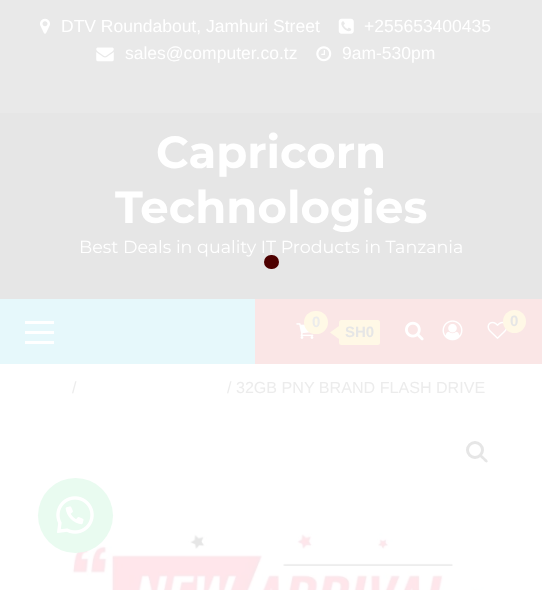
async function draw(canvas) {
  canvas.width = 542
  canvas.height = 590
  const ctx = canvas.getContext('2d')
  ctx.miterLimit = 4
  ctx.fontKerning = 'normal'
  async function loadImage(src) {
    const img = new Image()
    img.src = src
    await img.decode()
    return img
  }

  ctx.fillStyle = '#fff'
  ctx.fillRect(0, 0, 542, 590)
  ctx.fillStyle = '#e9e9e9'
  ctx.fillRect(0, 0, 542, 113)
  ctx.drawImage(await loadImage('image0.png'), 40, 18, 10, 16)
  ctx.font = '17.5px Liberation Sans'
  ctx.fillStyle = '#fff'
  ctx.fillText('DTV Roundabout, Jamhuri Street', 61, 32)
  ctx.drawImage(await loadImage('image1.png'), 338, 18, 16, 16)
  ctx.fillText('+255653400435', 364, 32)
  ctx.drawImage(await loadImage('image2.png'), 96, 47, 18, 15)
  ctx.fillText('sales@computer.co.tz', 125, 59)
  ctx.drawImage(await loadImage('image3.png'), 316, 46, 16, 16)
  ctx.fillText('9am-530pm', 342, 59)
  ctx.fillStyle = '#e6e6e6'
  ctx.fillRect(0, 113, 542, 186)
  ctx.font = 'bold 45px Montserrat'
  ctx.fillStyle = '#fff'
  ctx.fillText('Capricorn', 156, 168)
  ctx.fillText('Technologies', 115, 223)
  ctx.font = '17.5px Montserrat'
  ctx.fillText('Best Deals in quality IT Products in Tanzania', 79, 253)
  ctx.fillStyle = '#e6f8fb'
  ctx.fillRect(0, 299, 255, 65)
  ctx.fillStyle = '#fff'
  ctx.fillRect(25, 331, 29, 3)
  ctx.fillRect(25, 321, 29, 3)
  ctx.fillRect(25, 341, 29, 3)
  ctx.fillStyle = '#fae6e6'
  ctx.fillRect(255, 299, 287, 65)
  ctx.drawImage(await loadImage('image4.png'), 296, 323, 18, 16)
  ctx.fillStyle = '#fff9e6'
  ctx.beginPath()
  ctx.roundRect(304, 311, 24, 23, 11.5)
  ctx.fill()
  ctx.font = 'bold 15px Liberation Sans'
  ctx.fillStyle = '#ececec'
  ctx.fillText('0', 312, 327)
  ctx.fillStyle = '#fff8e6'
  ctx.beginPath()
  ctx.roundRect(339, 320, 41, 25, 2.5)
  ctx.fill()
  ctx.beginPath()
  ctx.moveTo(339, 326)
  ctx.lineTo(339, 339)
  ctx.lineTo(330, 332.5)
  ctx.closePath()
  ctx.fill()
  ctx.fillStyle = '#e6e6e6'
  ctx.fillText('SH0', 345, 337)
  ctx.drawImage(await loadImage('image5.png'), 405, 321, 19, 20)
  ctx.drawImage(await loadImage('image6.png'), 442, 320, 21, 21)
  ctx.drawImage(await loadImage('image7.png'), 487, 321, 20, 18)
  ctx.fillStyle = '#fff8e6'
  ctx.beginPath()
  ctx.arc(514.5, 321.5, 11.5, 0, 2 * Math.PI)
  ctx.fill()
  ctx.fillStyle = '#e6e6e6'
  ctx.fillText('0', 510, 326)
  ctx.font = '16.1px Liberation Sans'
  ctx.fillStyle = '#ececec'
  ctx.fillText('/', 72, 393)
  ctx.fillText('/ 32GB PNY BRAND FLASH DRIVE', 227, 393)
  ctx.beginPath()
  ctx.arc(475, 450, 7.5, 0, 2 * Math.PI)
  ctx.strokeStyle = '#e6e6e6'
  ctx.lineWidth = 3
  ctx.stroke()
  ctx.fillStyle = '#e6e6e6'
  ctx.beginPath()
  ctx.moveTo(480, 455)
  ctx.bezierCurveTo(481.5, 453.5, 484, 457, 484.5, 457.5)
  ctx.bezierCurveTo(485.5, 458.5, 488.5, 460.5, 487.5, 462)
  ctx.bezierCurveTo(486, 463.5, 483.5, 460.5, 483, 459.5)
  ctx.bezierCurveTo(482, 459, 479, 456.5, 480, 455)
  ctx.closePath()
  ctx.fill()
  ctx.drawImage(await loadImage('image8.png'), 71, 533, 413, 57)
  ctx.fillStyle = '#4d0000'
  ctx.beginPath()
  ctx.roundRect(264, 255, 15, 14, 7)
  ctx.fill()
  ctx.fillStyle = '#e9fbf0'
  ctx.beginPath()
  ctx.arc(75.5, 515.5, 37.5, 0, 2 * Math.PI)
  ctx.fill()
  ctx.drawImage(await loadImage('image9.png'), 56, 496, 38, 38)
}

draw(document.querySelector('canvas'))
